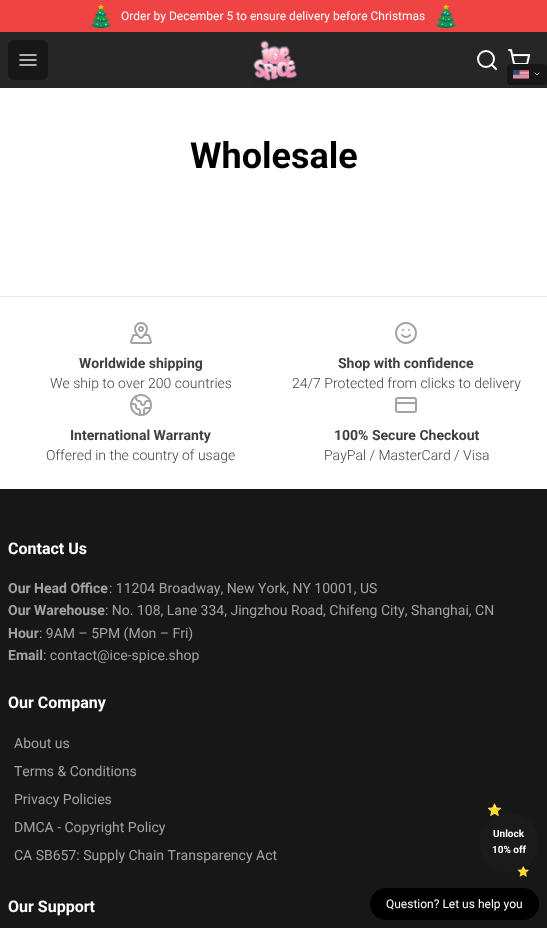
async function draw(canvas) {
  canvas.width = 547
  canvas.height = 928
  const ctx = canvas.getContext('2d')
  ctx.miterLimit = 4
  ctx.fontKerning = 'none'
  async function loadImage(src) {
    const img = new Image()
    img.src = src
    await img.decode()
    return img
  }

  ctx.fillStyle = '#fff'
  ctx.fillRect(0, 0, 547, 928)
  ctx.fillStyle = '#ef4444'
  ctx.fillRect(0, 0, 547, 32)
  ctx.drawImage(await loadImage('image0.png'), 91, 4, 20, 24)
  ctx.font = '12px Roboto'
  ctx.fillStyle = '#fff'
  ctx.fillText('Order by December 5 to ensure delivery before Christmas', 121, 20)
  ctx.drawImage(await loadImage('image0.png'), 436, 4, 20, 24)
  ctx.fillStyle = '#262626'
  ctx.fillRect(0, 32, 547, 56)
  ctx.fillStyle = '#171717'
  ctx.beginPath()
  ctx.roundRect(8, 40, 40, 40, 6)
  ctx.fill()
  ctx.beginPath()
  ctx.moveTo(20, 55)
  ctx.lineTo(36, 55)
  ctx.moveTo(20, 60)
  ctx.lineTo(36, 60)
  ctx.moveTo(20, 65)
  ctx.lineTo(36, 65)
  ctx.strokeStyle = '#e5e5e5'
  ctx.lineWidth = 1.5
  ctx.lineCap = 'round'
  ctx.lineJoin = 'round'
  ctx.stroke()
  ctx.drawImage(await loadImage('image1.png'), 253, 40, 45, 48)
  ctx.beginPath()
  ctx.moveTo(496, 69)
  ctx.lineTo(491.5, 64.5)
  ctx.strokeStyle = '#fff'
  ctx.lineWidth = 2
  ctx.stroke()
  ctx.beginPath()
  ctx.arc(486, 59, 8, 0, 2 * Math.PI)
  ctx.stroke()
  ctx.drawImage(await loadImage('image2.png'), 508, 49, 23, 15)
  ctx.beginPath()
  ctx.roundRect(507, 64, 40, 21, 4)
  ctx.fill()
  ctx.drawImage(await loadImage('image3.png'), 513, 70, 16, 9)
  ctx.beginPath()
  ctx.moveTo(535, 73)
  ctx.lineTo(537, 75)
  ctx.lineTo(539, 73)
  ctx.lineWidth = 0.7
  ctx.stroke()
  ctx.font = 'bold 36px Roboto'
  ctx.fillStyle = '#000'
  ctx.fillText('Wholesale', 190, 168)
  ctx.fillStyle = '#e5e5e5'
  ctx.fillRect(0, 296, 547, 1)
  ctx.drawImage(await loadImage('image4.png'), 130, 322, 22, 22)
  ctx.font = 'bold 14px Roboto'
  ctx.fillStyle = '#404040'
  ctx.fillText('Worldwide shipping', 79, 368)
  ctx.font = '300 14px Roboto'
  ctx.fillText('We ship to over 200 countries', 50, 388)
  ctx.drawImage(await loadImage('image5.png'), 395, 322, 22, 22)
  ctx.font = 'bold 14px Roboto'
  ctx.fillText('Shop with confidence', 338, 368)
  ctx.font = '300 14px Roboto'
  ctx.fillText('24/7 Protected from clicks to delivery', 292, 388)
  ctx.drawImage(await loadImage('image6.png'), 130, 394, 22, 22)
  ctx.font = 'bold 14px Roboto'
  ctx.fillText('International Warranty', 70, 440)
  ctx.font = '300 14px Roboto'
  ctx.fillText('Offered in the country of usage', 46, 460)
  ctx.beginPath()
  ctx.roundRect(396, 398, 20, 14, 2)
  ctx.strokeStyle = '#a3a3a3'
  ctx.lineWidth = 2
  ctx.lineJoin = 'miter'
  ctx.stroke()
  ctx.beginPath()
  ctx.moveTo(396, 403)
  ctx.lineTo(416, 403)
  ctx.lineJoin = 'round'
  ctx.stroke()
  ctx.font = 'bold 14px Roboto'
  ctx.fillText('100% Secure Checkout', 334, 440)
  ctx.font = '300 14px Roboto'
  ctx.fillText('PayPal / MasterCard / Visa', 324, 460)
  ctx.fillStyle = '#171717'
  ctx.fillRect(0, 489, 547, 439)
  ctx.font = 'bold 16px Roboto'
  ctx.fillStyle = '#fff'
  ctx.fillText('Contact Us', 8, 554)
  ctx.font = 'bold 14px Roboto'
  ctx.fillStyle = '#a3a3a3'
  ctx.fillText('Our Head Office', 8, 593)
  ctx.font = '14px Roboto'
  ctx.fillText(': 11204 Broadway, New York, NY 10001, US', 109, 593)
  ctx.font = 'bold 14px Roboto'
  ctx.fillText('Our Warehouse', 8, 615)
  ctx.font = '14px Roboto'
  ctx.fillText(': No. 108, Lane 334, Jingzhou Road, Chifeng City, Shanghai, CN', 105, 615)
  ctx.font = 'bold 14px Roboto'
  ctx.fillText('Hour', 8, 638)
  ctx.font = '14px Roboto'
  ctx.fillText(': 9AM – 5PM (Mon – Fri)', 39, 638)
  ctx.font = 'bold 14px Roboto'
  ctx.fillText('Email', 8, 660)
  ctx.font = '14px Roboto'
  ctx.fillText(': contact@ice-spice.shop', 43, 660)
  ctx.font = 'bold 16px Roboto'
  ctx.fillStyle = '#fff'
  ctx.fillText('Our Company', 8, 708)
  ctx.font = '14px Roboto'
  ctx.fillStyle = '#a3a3a3'
  ctx.fillText('About us', 14, 748)
  ctx.fillText('Terms & Conditions', 14, 776)
  ctx.fillText('Privacy Policies', 14, 804)
  ctx.fillText('DMCA - Copyright Policy', 14, 832)
  ctx.fillText('CA SB657: Supply Chain Transparency Act', 14, 860)
  ctx.font = 'bold 16px Roboto'
  ctx.fillStyle = '#fff'
  ctx.fillText('Our Support', 8, 912)
  ctx.fillStyle = '#1a1a1a'
  ctx.beginPath()
  ctx.arc(509, 842, 30, 0, 2 * Math.PI)
  ctx.fill()
  ctx.font = 'bold 12px Noto Color Emoji'
  ctx.fillStyle = '#ffd700'
  ctx.fillText('⭐', 487, 814)
  ctx.font = 'bold 10px Roboto'
  ctx.fillStyle = '#fff'
  ctx.fillText('Unlock', 493, 837)
  ctx.fillText('10% off', 492, 853)
  ctx.font = 'bold 10px Noto Color Emoji'
  ctx.fillStyle = '#ffd700'
  ctx.fillText('⭐', 517, 875)
  ctx.fillStyle = '#000'
  ctx.beginPath()
  ctx.roundRect(370, 888, 169, 32, 16)
  ctx.fill()
  ctx.font = '12px Roboto'
  ctx.fillStyle = '#fff'
  ctx.fillText('Question? Let us help you', 386, 908)
}

draw(document.querySelector('canvas'))
